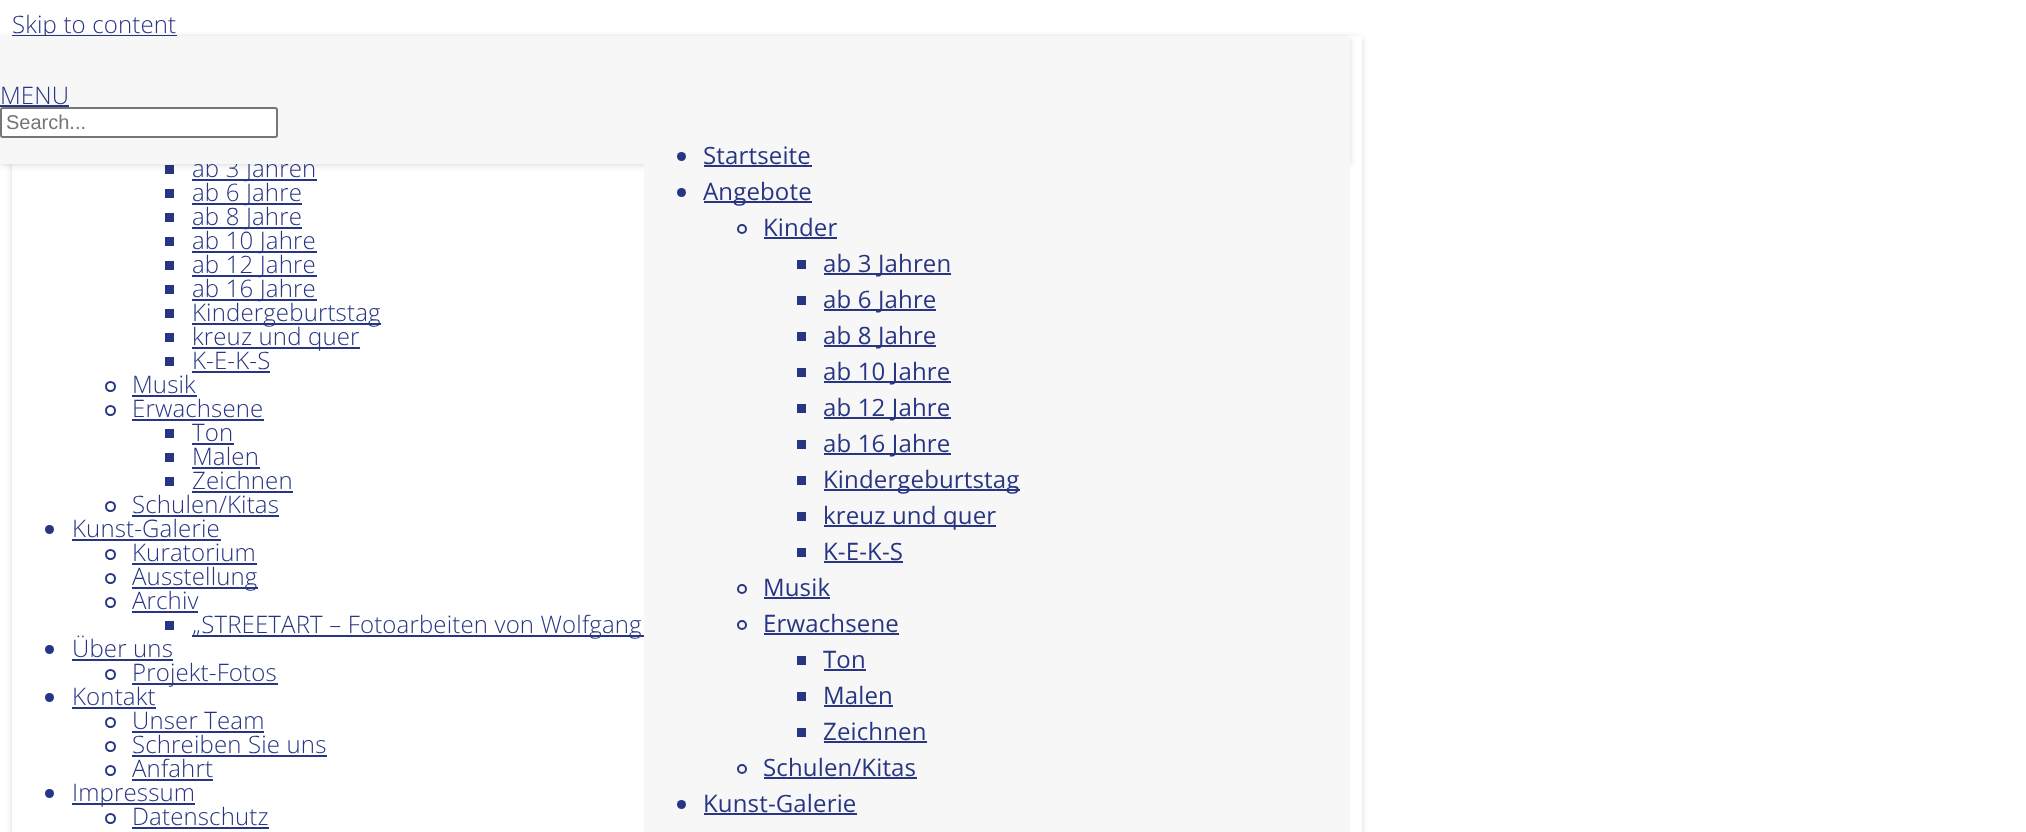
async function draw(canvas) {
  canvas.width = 2026
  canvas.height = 832
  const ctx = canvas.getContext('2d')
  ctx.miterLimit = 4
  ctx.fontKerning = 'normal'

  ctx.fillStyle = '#fff'
  ctx.fillRect(0, 0, 2026, 832)
  ctx.save()
  ctx.beginPath()
  ctx.moveTo(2, 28)
  ctx.lineTo(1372, 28)
  ctx.lineTo(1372, 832)
  ctx.lineTo(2, 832)
  ctx.closePath()
  ctx.moveTo(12, 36)
  ctx.lineTo(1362, 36)
  ctx.lineTo(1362, 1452)
  ctx.lineTo(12, 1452)
  ctx.closePath()
  ctx.clip('evenodd')
  ctx.fillStyle = '#00000026'
  ctx.filter = 'blur(3px)'
  ctx.beginPath()
  ctx.rect(12, 38, 1350, 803)
  ctx.fill()
  ctx.filter = 'none'
  ctx.restore()
  ctx.fillStyle = '#273582'
  ctx.fillRect(12, 35, 165, 1)
  ctx.letterSpacing = '0.15px'
  ctx.font = '300 24px Open Sans'
  ctx.fillText('Skip to content', 12, 33)
  ctx.fillRect(165, 165, 9, 9)
  ctx.fillStyle = '#00000026'
  ctx.filter = 'blur(3px)'
  ctx.beginPath()
  ctx.rect(0, 38, 1350, 127)
  ctx.fill()
  ctx.filter = 'none'
  ctx.fillStyle = '#273582'
  ctx.fillRect(192, 179, 125, 2)
  ctx.fillText('ab 3 Jahren', 192, 177)
  ctx.fillStyle = '#f7f7f7'
  ctx.fillRect(0, 36, 1350, 128)
  ctx.fillStyle = '#273582'
  ctx.fillText('MENU', 0, 104)
  ctx.fillRect(0, 105, 69, 2)
  ctx.fillStyle = '#fff'
  ctx.beginPath()
  ctx.roundRect(1, 108, 276, 29, 2)
  ctx.fill()
  ctx.strokeStyle = '#767676'
  ctx.lineWidth = 2
  ctx.stroke()
  ctx.letterSpacing = '0px'
  ctx.font = '20px Liberation Sans'
  ctx.fillStyle = '#757575'
  ctx.fillText('Search...', 6, 129)
  ctx.fillStyle = '#f7f7f7'
  ctx.fillRect(644, 164, 706, 668)
  ctx.fillStyle = '#273582'
  ctx.beginPath()
  ctx.arc(681.5, 156.5, 4.5, 0, 2 * Math.PI)
  ctx.fill()
  ctx.letterSpacing = '0.15px'
  ctx.font = '24px Open Sans'
  ctx.fillText('Startseite', 703, 164)
  ctx.fillRect(704, 165, 108, 2)
  ctx.beginPath()
  ctx.arc(681.5, 192.5, 4.5, 0, 2 * Math.PI)
  ctx.fill()
  ctx.fillRect(704, 201, 108, 2)
  ctx.fillText('Angebote', 703, 200)
  ctx.beginPath()
  ctx.arc(742, 229, 4, 0, 2 * Math.PI)
  ctx.strokeStyle = '#273582'
  ctx.stroke()
  ctx.fillText('Kinder', 763, 236)
  ctx.fillRect(764, 237, 73, 2)
  ctx.fillRect(797, 260, 9, 9)
  ctx.fillRect(824, 273, 127, 2)
  ctx.fillText('ab 3 Jahren', 823, 272)
  ctx.fillRect(797, 296, 9, 9)
  ctx.fillRect(824, 309, 112, 2)
  ctx.fillText('ab 6 Jahre', 823, 308)
  ctx.fillRect(797, 332, 9, 9)
  ctx.fillRect(824, 345, 112, 2)
  ctx.fillText('ab 8 Jahre', 823, 344)
  ctx.fillRect(797, 368, 9, 9)
  ctx.fillRect(824, 381, 127, 2)
  ctx.fillText('ab 10 Jahre', 823, 380)
  ctx.fillRect(797, 404, 9, 9)
  ctx.fillRect(824, 417, 127, 2)
  ctx.fillText('ab 12 Jahre', 823, 416)
  ctx.fillRect(797, 440, 9, 9)
  ctx.fillRect(824, 453, 127, 2)
  ctx.fillText('ab 16 Jahre', 823, 452)
  ctx.fillRect(797, 476, 9, 9)
  ctx.fillRect(824, 489, 196, 2)
  ctx.fillText('Kindergeburtstag', 823, 488)
  ctx.fillRect(797, 512, 9, 9)
  ctx.fillRect(824, 525, 172, 2)
  ctx.fillText('kreuz und quer', 823, 524)
  ctx.fillRect(797, 548, 9, 9)
  ctx.fillText('K-E-K-S', 823, 560)
  ctx.fillRect(824, 561, 79, 2)
  ctx.beginPath()
  ctx.arc(742, 589, 4, 0, 2 * Math.PI)
  ctx.stroke()
  ctx.fillText('Musik', 763, 596)
  ctx.fillRect(764, 597, 66, 2)
  ctx.beginPath()
  ctx.arc(742, 625, 4, 0, 2 * Math.PI)
  ctx.stroke()
  ctx.fillText('Erwachsene', 763, 632)
  ctx.fillRect(764, 633, 135, 2)
  ctx.fillRect(797, 656, 9, 9)
  ctx.fillText('Ton', 823, 668)
  ctx.fillRect(824, 669, 42, 2)
  ctx.fillRect(797, 692, 9, 9)
  ctx.fillText('Malen', 823, 704)
  ctx.fillRect(824, 705, 69, 2)
  ctx.fillRect(797, 728, 9, 9)
  ctx.fillText('Zeichnen', 823, 740)
  ctx.fillRect(824, 741, 103, 2)
  ctx.beginPath()
  ctx.arc(742, 769, 4, 0, 2 * Math.PI)
  ctx.stroke()
  ctx.fillText('Schulen/Kitas', 763, 776)
  ctx.fillRect(764, 777, 153, 2)
  ctx.beginPath()
  ctx.arc(681.5, 804.5, 4.5, 0, 2 * Math.PI)
  ctx.fill()
  ctx.fillText('Kunst-Galerie', 703, 812)
  ctx.fillRect(704, 813, 153, 2)
  ctx.fillRect(165, 189, 9, 9)
  ctx.fillRect(192, 203, 110, 2)
  ctx.font = '300 24px Open Sans'
  ctx.fillText('ab 6 Jahre', 192, 201)
  ctx.fillRect(165, 213, 9, 9)
  ctx.fillRect(192, 227, 110, 2)
  ctx.fillText('ab 8 Jahre', 192, 225)
  ctx.fillRect(165, 237, 9, 9)
  ctx.fillRect(192, 251, 125, 2)
  ctx.fillText('ab 10 Jahre', 192, 249)
  ctx.fillRect(165, 261, 9, 9)
  ctx.fillRect(192, 275, 125, 2)
  ctx.fillText('ab 12 Jahre', 192, 273)
  ctx.fillRect(165, 285, 9, 9)
  ctx.fillRect(192, 299, 125, 2)
  ctx.fillText('ab 16 Jahre', 192, 297)
  ctx.fillRect(165, 309, 9, 9)
  ctx.fillRect(192, 323, 189, 2)
  ctx.fillText('Kindergeburtstag', 192, 321)
  ctx.fillRect(165, 333, 9, 9)
  ctx.fillRect(192, 347, 168, 2)
  ctx.fillText('kreuz und quer', 192, 345)
  ctx.fillRect(165, 357, 9, 9)
  ctx.fillText('K-E-K-S', 192, 369)
  ctx.fillRect(192, 371, 78, 2)
  ctx.beginPath()
  ctx.arc(110.5, 386.5, 4.5, 0, 2 * Math.PI)
  ctx.stroke()
  ctx.fillText('Musik', 132, 393)
  ctx.fillRect(132, 395, 65, 2)
  ctx.beginPath()
  ctx.arc(110.5, 410.5, 4.5, 0, 2 * Math.PI)
  ctx.stroke()
  ctx.fillText('Erwachsene', 132, 417)
  ctx.fillRect(132, 419, 132, 2)
  ctx.fillRect(165, 429, 9, 9)
  ctx.fillText('Ton', 192, 441)
  ctx.fillRect(192, 443, 42, 2)
  ctx.fillRect(165, 453, 9, 9)
  ctx.fillText('Malen', 192, 465)
  ctx.fillRect(192, 467, 68, 2)
  ctx.fillRect(165, 477, 9, 9)
  ctx.fillText('Zeichnen', 192, 489)
  ctx.fillRect(192, 491, 101, 2)
  ctx.beginPath()
  ctx.arc(110.5, 506.5, 4.5, 0, 2 * Math.PI)
  ctx.stroke()
  ctx.fillText('Schulen/Kitas', 132, 513)
  ctx.fillRect(132, 515, 147, 2)
  ctx.beginPath()
  ctx.arc(49.5, 529.5, 4.5, 0, 2 * Math.PI)
  ctx.fill()
  ctx.fillText('Kunst-Galerie', 72, 537)
  ctx.fillRect(72, 539, 149, 2)
  ctx.beginPath()
  ctx.arc(110.5, 554.5, 4.5, 0, 2 * Math.PI)
  ctx.stroke()
  ctx.fillText('Kuratorium', 132, 561)
  ctx.fillRect(132, 563, 125, 2)
  ctx.beginPath()
  ctx.arc(110.5, 578.5, 4.5, 0, 2 * Math.PI)
  ctx.stroke()
  ctx.fillRect(132, 587, 126, 2)
  ctx.fillText('Ausstellung', 132, 585)
  ctx.beginPath()
  ctx.arc(110.5, 602.5, 4.5, 0, 2 * Math.PI)
  ctx.stroke()
  ctx.fillText('Archiv', 132, 609)
  ctx.fillRect(132, 611, 66, 2)
  ctx.fillRect(165, 621, 9, 9)
  ctx.fillRect(192, 635, 452, 2)
  ctx.fillText('„STREETART – Fotoarbeiten von Wolfgang', 192, 633)
  ctx.beginPath()
  ctx.arc(49.5, 649.5, 4.5, 0, 2 * Math.PI)
  ctx.fill()
  ctx.fillText('Über uns', 72, 657)
  ctx.fillRect(72, 659, 101, 2)
  ctx.beginPath()
  ctx.arc(110.5, 674.5, 4.5, 0, 2 * Math.PI)
  ctx.stroke()
  ctx.fillRect(132, 683, 146, 2)
  ctx.fillText('Projekt-Fotos', 132, 681)
  ctx.beginPath()
  ctx.arc(49.5, 697.5, 4.5, 0, 2 * Math.PI)
  ctx.fill()
  ctx.fillText('Kontakt', 72, 705)
  ctx.fillRect(72, 707, 84, 2)
  ctx.beginPath()
  ctx.arc(110.5, 722.5, 4.5, 0, 2 * Math.PI)
  ctx.stroke()
  ctx.fillText('Unser Team', 132, 729)
  ctx.fillRect(132, 731, 132, 2)
  ctx.beginPath()
  ctx.arc(110.5, 746.5, 4.5, 0, 2 * Math.PI)
  ctx.stroke()
  ctx.fillText('Schreiben Sie uns', 132, 753)
  ctx.fillRect(132, 755, 195, 2)
  ctx.beginPath()
  ctx.arc(110.5, 770.5, 4.5, 0, 2 * Math.PI)
  ctx.stroke()
  ctx.fillText('Anfahrt', 132, 777)
  ctx.fillRect(132, 779, 81, 2)
  ctx.beginPath()
  ctx.arc(49.5, 793.5, 4.5, 0, 2 * Math.PI)
  ctx.fill()
  ctx.fillRect(72, 803, 123, 2)
  ctx.fillText('Impressum', 72, 801)
  ctx.beginPath()
  ctx.arc(110.5, 818.5, 4.5, 0, 2 * Math.PI)
  ctx.stroke()
  ctx.fillText('Datenschutz', 132, 825)
  ctx.fillRect(132, 827, 137, 2)
}

draw(document.querySelector('canvas'))
